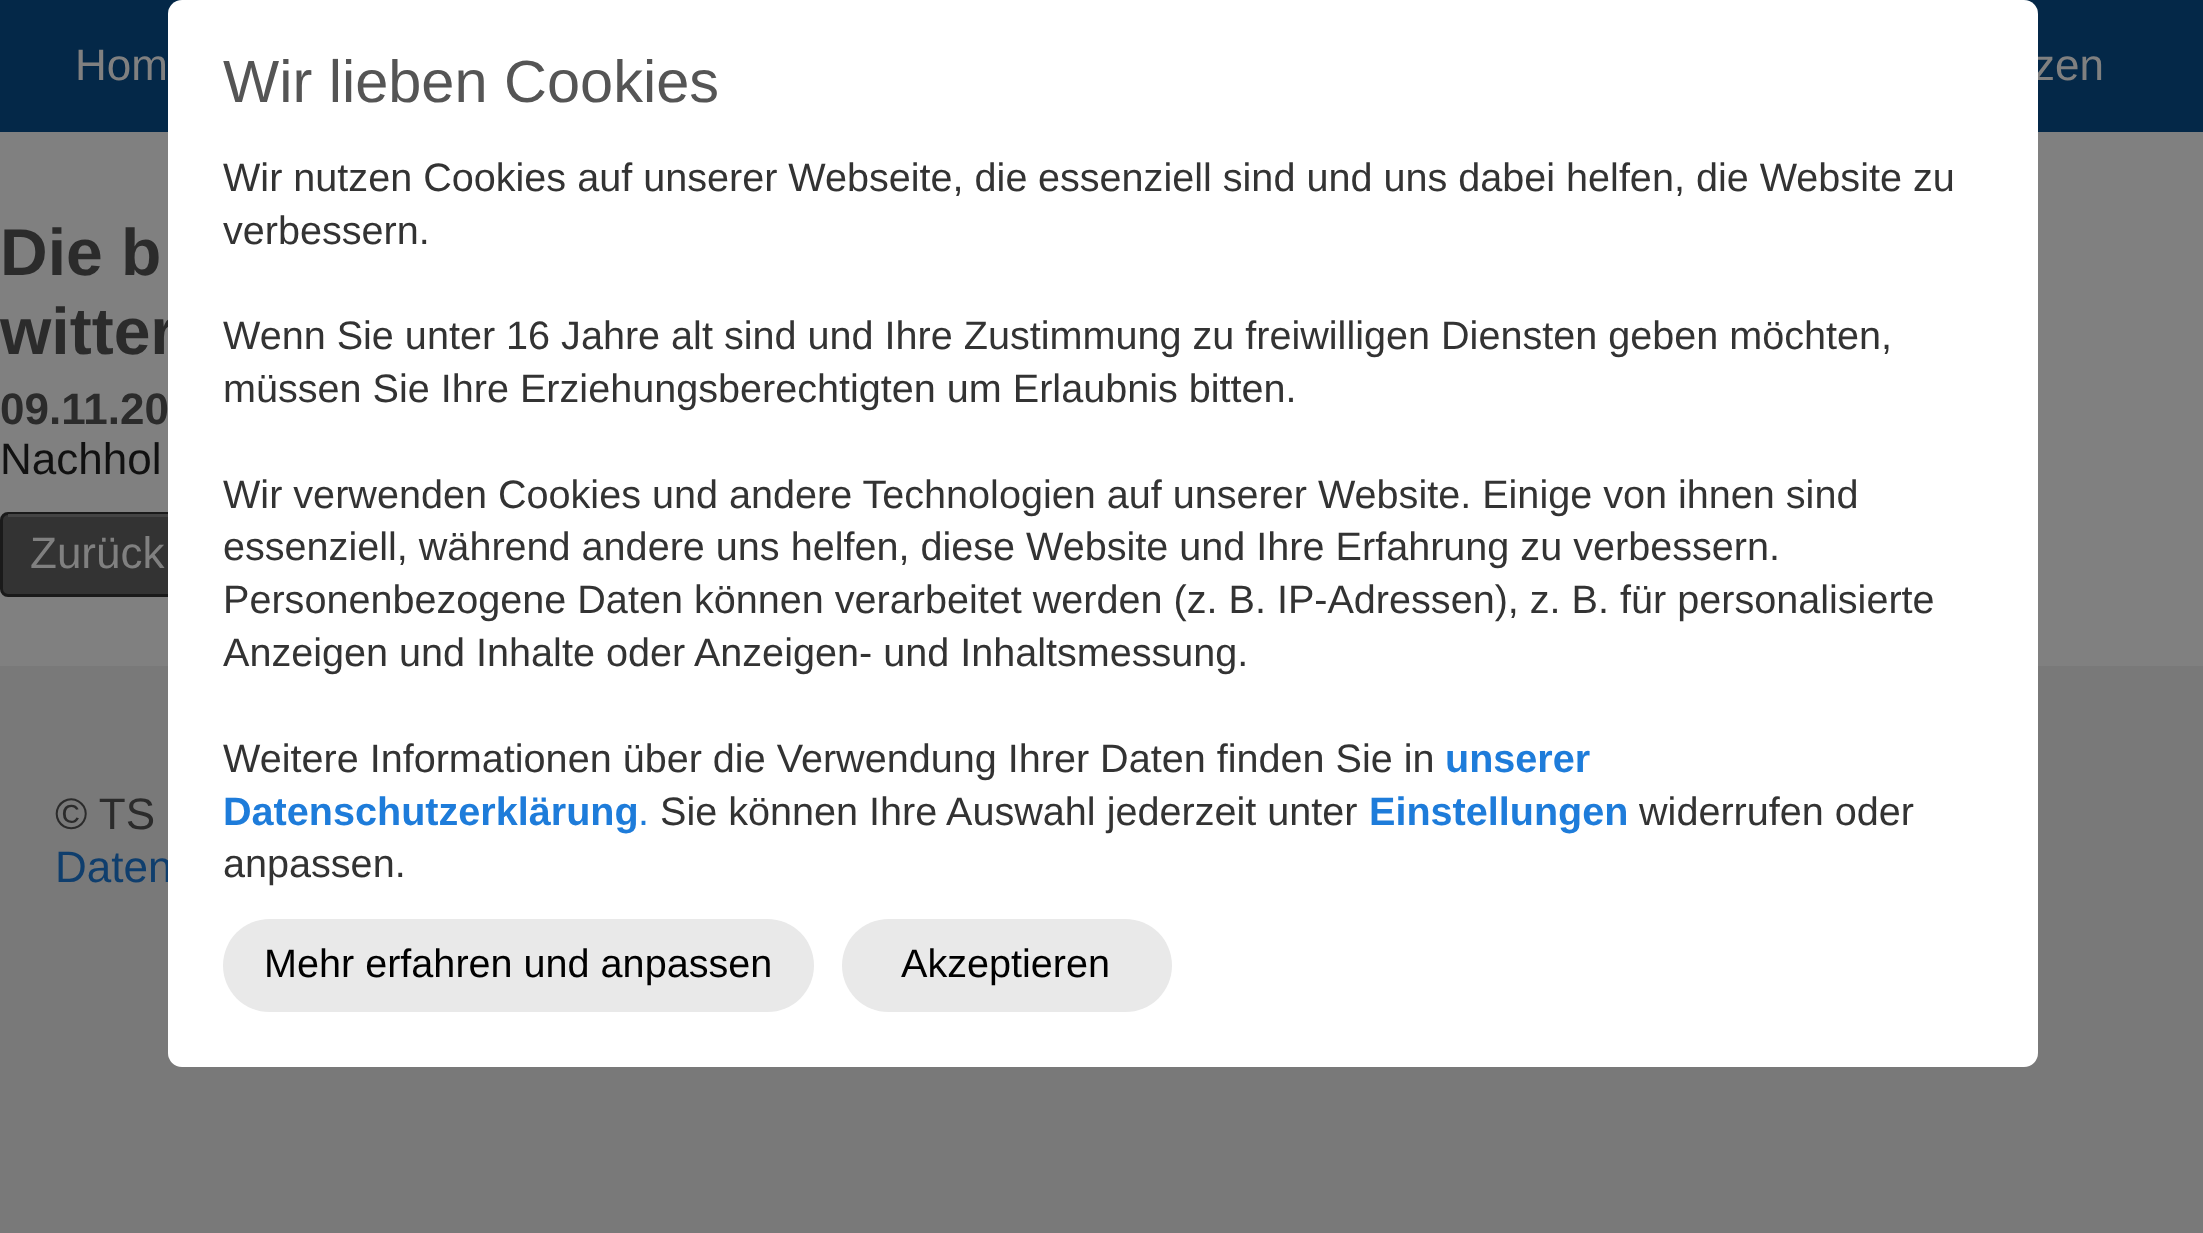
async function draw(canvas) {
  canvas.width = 2203
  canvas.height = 1233
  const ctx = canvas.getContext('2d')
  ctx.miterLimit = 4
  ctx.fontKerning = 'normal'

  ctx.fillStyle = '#797979'
  ctx.fillRect(0, 0, 2203, 1233)
  ctx.fillStyle = '#042848'
  ctx.fillRect(0, 0, 2203, 132)
  ctx.font = '44px Liberation Sans'
  ctx.fillStyle = '#808080'
  ctx.fillText('Hom', 75, 80)
  ctx.fillText('zen', 2033, 80)
  ctx.fillRect(0, 132, 2203, 534)
  ctx.font = 'bold 66px Liberation Sans'
  ctx.fillStyle = '#2b2b2b'
  ctx.fillText('Die b', 0, 275)
  ctx.fillText('witter', 0, 354)
  ctx.font = 'bold 44px Liberation Sans'
  ctx.fillText('09.11.20', 0, 424)
  ctx.font = '44px Liberation Sans'
  ctx.fillStyle = '#111'
  ctx.fillText('Nachhol', 0, 474)
  ctx.fillStyle = '#333'
  ctx.beginPath()
  ctx.roundRect(1.5, 513.5, 192, 82, 6.5)
  ctx.fill()
  ctx.strokeStyle = '#1a1a1a'
  ctx.lineWidth = 3
  ctx.stroke()
  ctx.fillStyle = '#444'
  ctx.fillRect(8, 514, 160, 3)
  ctx.fillStyle = '#808080'
  ctx.fillText('Zurück', 30, 568)
  ctx.fillStyle = '#2b2b2b'
  ctx.fillText('© TS', 55, 829)
  ctx.fillStyle = '#0f3e6d'
  ctx.fillText('Daten', 55, 882)
  ctx.fillStyle = '#fff'
  ctx.beginPath()
  ctx.roundRect(168, 0, 1870, 1067, 14)
  ctx.fill()
  ctx.font = '59.5px Liberation Sans'
  ctx.fillStyle = '#555'
  ctx.fillText('Wir lieben Cookies', 223, 102)
  ctx.font = '39.6px Liberation Sans'
  ctx.fillStyle = '#333'
  ctx.fillText('Wir nutzen Cookies auf unserer Webseite, die', 223, 191)
  ctx.fillText('essenziell sind und uns dabei helfen, die Website zu', 1038, 191)
  ctx.fillText('verbessern.', 223, 244)
  ctx.fillText('Wenn Sie unter 16 Jahre alt sind und Ihre Zustimmung zu freiwilligen Diensten geben möchten,', 223, 349)
  ctx.fillText('müssen Sie Ihre Erziehungsberechtigten um Erlaubnis bitten.', 223, 402)
  ctx.fillText('Wir verwenden Cookies und andere Technologien auf unserer Website. Einige von ihnen sind', 223, 508)
  ctx.fillText('essenziell, während andere uns helfen, diese Website und Ihre Erfahrung zu verbessern.', 223, 560)
  ctx.fillText('Personenbezogene Daten können verarbeitet werden (z. B. IP-Adressen), z. B. für personalisierte', 223, 613)
  ctx.fillText('Anzeigen und Inhalte oder Anzeigen- und Inhaltsmessung.', 223, 666)
  ctx.fillText('Weitere Informationen über die Verwendung Ihrer Daten finden Sie in', 223, 772)
  ctx.font = 'bold 39.6px Liberation Sans'
  ctx.fillStyle = '#1e7cda'
  ctx.fillText('unserer', 1445, 772)
  ctx.fillText('Datenschutzerklärung', 223, 825)
  ctx.font = '39.6px Liberation Sans'
  ctx.fillText('.', 638, 825)
  ctx.fillStyle = '#333'
  ctx.fillText('Sie können Ihre Auswahl jederzeit unter', 660, 825)
  ctx.font = 'bold 39.6px Liberation Sans'
  ctx.fillStyle = '#1e7cda'
  ctx.fillText('Einstellungen', 1369, 825)
  ctx.font = '39.6px Liberation Sans'
  ctx.fillStyle = '#333'
  ctx.fillText('widerrufen oder', 1639, 825)
  ctx.fillText('anpassen.', 223, 877)
  ctx.fillStyle = '#e9e9e9'
  ctx.beginPath()
  ctx.roundRect(223, 919, 591, 93, 46.5)
  ctx.fill()
  ctx.fillStyle = '#000'
  ctx.fillText('Mehr erfahren und anpassen', 264, 977)
  ctx.fillStyle = '#e9e9e9'
  ctx.beginPath()
  ctx.roundRect(842, 919, 330, 93, 46.5)
  ctx.fill()
  ctx.fillStyle = '#000'
  ctx.fillText('Akzeptieren', 901, 977)
}

draw(document.querySelector('canvas'))
